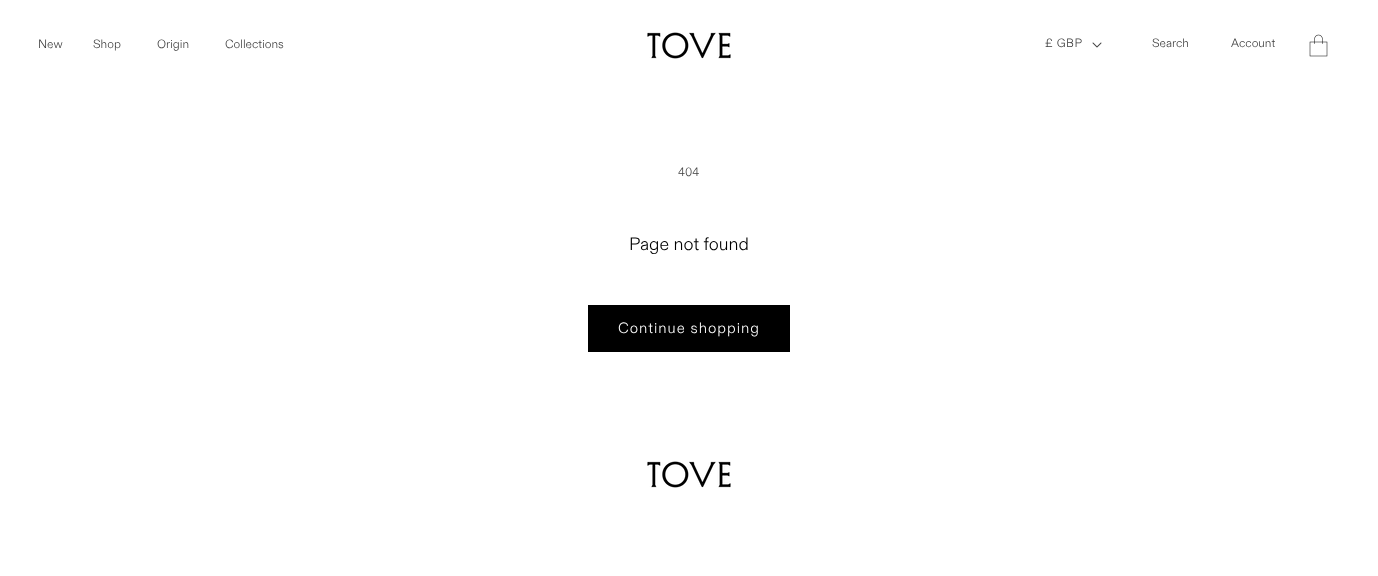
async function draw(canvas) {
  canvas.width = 1378
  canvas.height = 576
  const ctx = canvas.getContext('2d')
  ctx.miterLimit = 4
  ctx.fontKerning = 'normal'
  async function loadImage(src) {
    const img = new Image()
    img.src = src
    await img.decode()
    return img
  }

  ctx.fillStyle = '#fff'
  ctx.fillRect(0, 0, 1378, 576)
  ctx.font = '300 12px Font'
  ctx.fillStyle = '#404040'
  ctx.fillText('New', 38, 48)
  ctx.fillText('Shop', 93, 48)
  ctx.fillText('Origin', 157, 48)
  ctx.fillText('Collections', 225, 48)
  ctx.drawImage(await loadImage('image0.png'), 647, 32, 84, 27)
  ctx.letterSpacing = '0.5px'
  ctx.fillText('£ GBP', 1045, 47)
  ctx.drawImage(await loadImage('image1.png'), 1092, 42, 10, 6)
  ctx.letterSpacing = '0px'
  ctx.fillText('Search', 1152, 47)
  ctx.fillText('Account', 1231, 47)
  ctx.drawImage(await loadImage('image2.png'), 1309, 34, 19, 23)
  ctx.fillText('404', 678, 176)
  ctx.font = '300 18px Font'
  ctx.fillStyle = '#000'
  ctx.fillText('Page not found', 629, 250)
  ctx.fillRect(588, 305, 202, 47)
  ctx.letterSpacing = '1px'
  ctx.font = '300 15px Font'
  ctx.fillStyle = '#fff'
  ctx.fillText('Continue shopping', 618, 333)
  ctx.drawImage(await loadImage('image0.png'), 647, 461, 84, 27)
}

draw(document.querySelector('canvas'))
